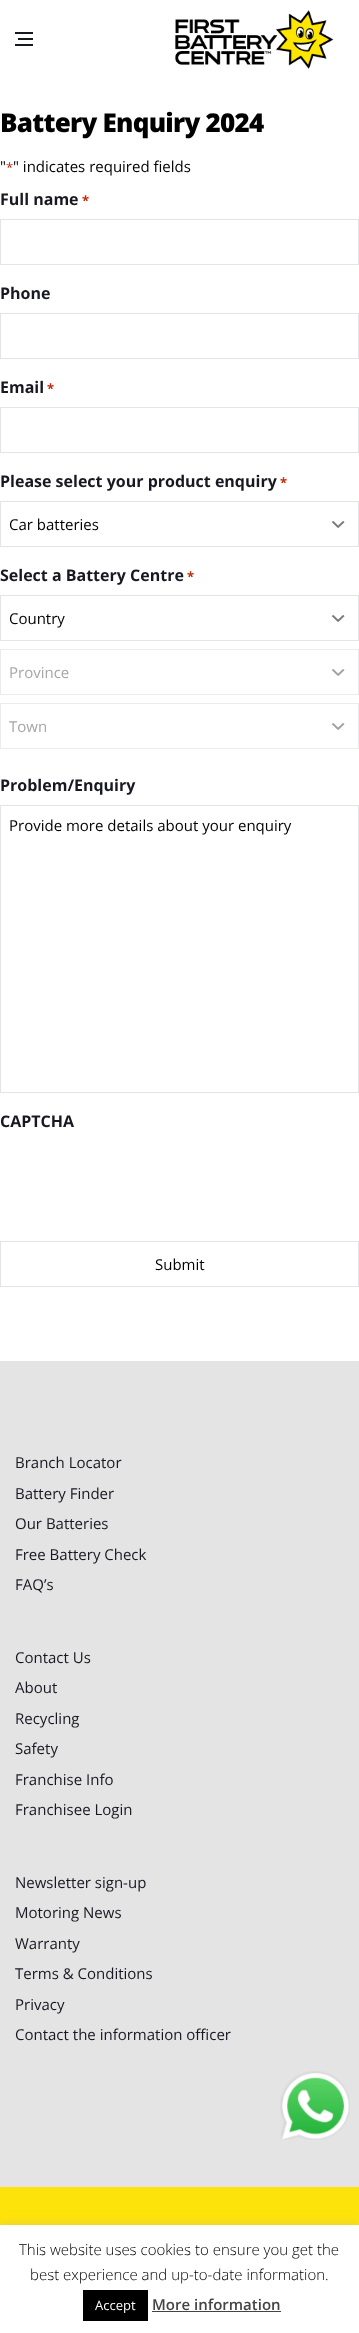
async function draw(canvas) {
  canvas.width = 359
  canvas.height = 2333
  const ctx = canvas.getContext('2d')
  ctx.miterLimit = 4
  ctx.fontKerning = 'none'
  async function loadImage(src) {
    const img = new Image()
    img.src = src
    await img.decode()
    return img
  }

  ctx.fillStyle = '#fff'
  ctx.fillRect(0, 0, 359, 2333)
  ctx.fillStyle = '#171821'
  ctx.fillRect(18, 38, 15, 2)
  ctx.fillRect(15, 32, 18, 2)
  ctx.fillRect(15, 44, 18, 2)
  ctx.drawImage(await loadImage('image0.png'), 175, 10, 159, 59)
  ctx.letterSpacing = '-0.75px'
  ctx.font = '800 26px Open Sans'
  ctx.fillStyle = '#000'
  ctx.fillText('Battery Enquiry 2024', 0, 132)
  ctx.letterSpacing = '0px'
  ctx.font = '15px Open Sans'
  ctx.fillText('"', 0, 172)
  ctx.font = '13px Open Sans'
  ctx.fillStyle = '#c02b0a'
  ctx.fillText('*', 6, 172)
  ctx.font = '15px Open Sans'
  ctx.fillStyle = '#000'
  ctx.fillText('" indicates required fields', 13, 172)
  ctx.font = 'bold 16px Open Sans'
  ctx.fillStyle = '#171821'
  ctx.fillText('Full name', 0, 205)
  ctx.font = 'bold 13px Open Sans'
  ctx.fillStyle = '#c02b0a'
  ctx.fillText('*', 82, 205)
  ctx.strokeStyle = '#e3e4e8'
  ctx.strokeRect(0.5, 219.5, 358, 45)
  ctx.font = 'bold 16px Open Sans'
  ctx.fillStyle = '#171821'
  ctx.fillText('Phone', 0, 299)
  ctx.strokeRect(0.5, 313.5, 358, 45)
  ctx.fillText('Email', 0, 393)
  ctx.font = 'bold 13px Open Sans'
  ctx.fillStyle = '#c02b0a'
  ctx.fillText('*', 47, 393)
  ctx.strokeRect(0.5, 407.5, 358, 45)
  ctx.font = 'bold 16px Open Sans'
  ctx.fillStyle = '#171821'
  ctx.fillText('Please select your product enquiry', 0, 487)
  ctx.font = 'bold 13px Open Sans'
  ctx.fillStyle = '#c02b0a'
  ctx.fillText('*', 280, 487)
  ctx.drawImage(await loadImage('image1.png'), 331, 521, 14, 7)
  ctx.strokeRect(0.5, 501.5, 358, 45)
  ctx.font = '15px Open Sans'
  ctx.fillStyle = '#000'
  ctx.fillText('Car batteries', 9, 530)
  ctx.font = 'bold 16px Open Sans'
  ctx.fillStyle = '#171821'
  ctx.fillText('Select a Battery Centre', 0, 581)
  ctx.font = 'bold 13px Open Sans'
  ctx.fillStyle = '#c02b0a'
  ctx.fillText('*', 187, 581)
  ctx.drawImage(await loadImage('image1.png'), 331, 615, 14, 7)
  ctx.strokeRect(0.5, 595.5, 358, 45)
  ctx.font = '15px Open Sans'
  ctx.fillStyle = '#000'
  ctx.fillText('Country', 9, 624)
  ctx.drawImage(await loadImage('image2.png'), 331, 669, 14, 7)
  ctx.strokeStyle = '#ebecef'
  ctx.strokeRect(0.5, 649.5, 358, 45)
  ctx.fillStyle = '#a6a6a6'
  ctx.fillText('Province', 9, 678)
  ctx.drawImage(await loadImage('image2.png'), 331, 723, 14, 7)
  ctx.strokeRect(0.5, 703.5, 358, 45)
  ctx.fillText('Town', 9, 732)
  ctx.font = 'bold 16px Open Sans'
  ctx.fillStyle = '#171821'
  ctx.fillText('Problem/Enquiry', 0, 791)
  ctx.strokeStyle = '#e3e4e8'
  ctx.strokeRect(0.5, 805.5, 358, 287)
  ctx.font = '15px Open Sans'
  ctx.fillStyle = '#000'
  ctx.fillText('Provide more details about your enquiry', 9, 831)
  ctx.font = 'bold 16px Open Sans'
  ctx.fillStyle = '#171821'
  ctx.fillText('CAPTCHA', 0, 1127)
  ctx.strokeRect(0.5, 1241.5, 358, 45)
  ctx.font = '15px Open Sans'
  ctx.fillStyle = '#000'
  ctx.fillText('Submit', 155, 1270)
  ctx.fillStyle = '#e4e4e4'
  ctx.fillRect(0, 1361, 359, 826)
  ctx.fillStyle = '#171821'
  ctx.fillText('Branch Locator', 15, 1468)
  ctx.fillText('Battery Finder', 15, 1499)
  ctx.fillText('Our Batteries', 15, 1529)
  ctx.fillText('Free Battery Check', 15, 1560)
  ctx.fillText('FAQ’s', 15, 1590)
  ctx.fillText('Contact Us', 15, 1663)
  ctx.fillText('About', 15, 1693)
  ctx.fillText('Recycling', 15, 1724)
  ctx.fillText('Safety', 15, 1754)
  ctx.fillText('Franchise Info', 15, 1785)
  ctx.fillText('Franchisee Login', 15, 1815)
  ctx.fillText('Newsletter sign-up', 15, 1888)
  ctx.fillText('Motoring News', 15, 1918)
  ctx.fillText('Warranty', 15, 1949)
  ctx.fillText('Terms & Conditions', 15, 1979)
  ctx.fillText('Privacy', 15, 2010)
  ctx.fillText('Contact the information officer', 15, 2040)
  ctx.fillStyle = '#fee30a'
  ctx.fillRect(0, 2187, 359, 38)
  ctx.drawImage(await loadImage('image3.png'), 280, 2071, 70, 69)
  ctx.fillStyle = '#acabab4d'
  ctx.filter = 'blur(5px)'
  ctx.beginPath()
  ctx.rect(0, 2224, 359, 108)
  ctx.fill()
  ctx.filter = 'none'
  ctx.fillStyle = '#fff'
  ctx.fillRect(0, 2225, 359, 108)
  ctx.font = '300 15px Open Sans'
  ctx.fillStyle = '#000'
  ctx.fillText('This website uses cookies to ensure you get the', 19, 2255)
  ctx.fillText('best experience and up-to-date information.', 30, 2280)
  ctx.fillRect(83, 2290, 65, 31)
  ctx.font = '13px Open Sans'
  ctx.fillStyle = '#fff'
  ctx.fillText('Accept', 95, 2310)
  ctx.font = '600 15px Open Sans'
  ctx.fillStyle = '#444'
  ctx.fillText('More information', 152, 2310)
  ctx.fillRect(152, 2311, 129, 1)
}

draw(document.querySelector('canvas'))
